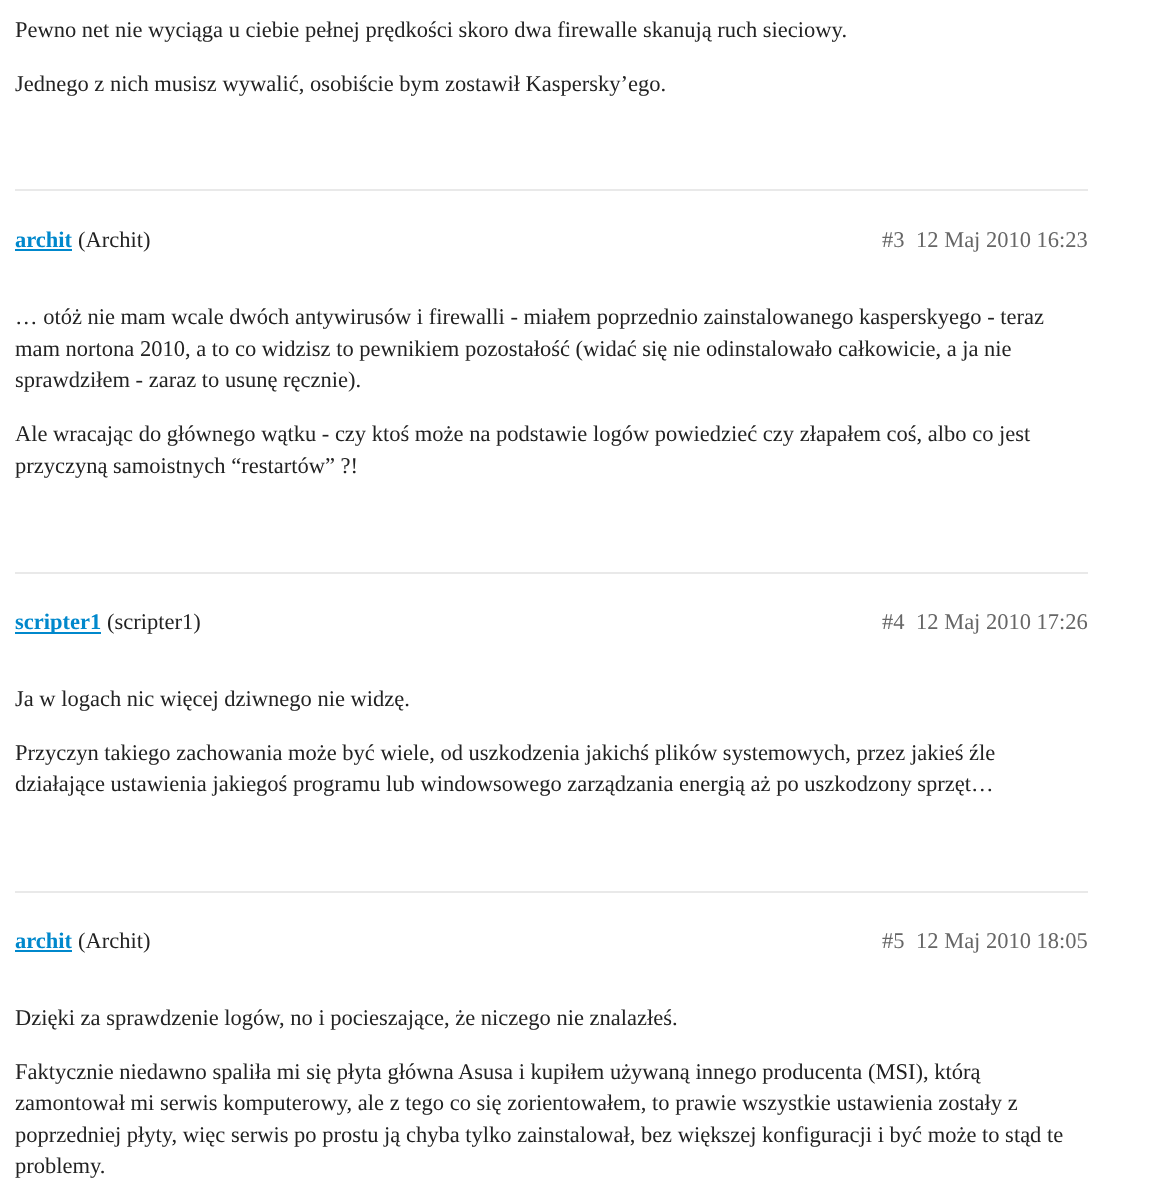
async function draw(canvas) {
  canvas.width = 1173
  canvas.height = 1189
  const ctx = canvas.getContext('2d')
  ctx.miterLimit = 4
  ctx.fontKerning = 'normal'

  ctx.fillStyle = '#fff'
  ctx.fillRect(0, 0, 1173, 1189)
  ctx.font = '22.5px Liberation Serif'
  ctx.fillStyle = '#222'
  ctx.fillText('Pewno net nie wyciąga u ciebie pełnej prędkości skoro dwa firewalle skanują ruch sieciowy.', 15, 37)
  ctx.fillText('Jednego z nich musisz wywalić, osobiście bym zostawił Kaspersky’ego.', 15, 91)
  ctx.fillStyle = '#e9e9e9'
  ctx.fillRect(15, 189, 1073, 2)
  ctx.font = 'bold 22.5px Liberation Serif'
  ctx.fillStyle = '#08c'
  ctx.fillText('archit', 15, 247)
  ctx.fillRect(15, 249, 57, 2)
  ctx.font = '22.5px Liberation Serif'
  ctx.fillStyle = '#222'
  ctx.fillText('(Archit)', 78, 247)
  ctx.fillStyle = '#666'
  ctx.fillText('#3', 882, 247)
  ctx.fillText('12 Maj 2010 16:23', 916, 247)
  ctx.fillStyle = '#222'
  ctx.fillText('… otóż nie mam wcale dwóch antywirusów i firewalli - miałem poprzednio zainstalowanego kasperskyego - teraz', 15, 324)
  ctx.fillText('mam nortona 2010, a to co widzisz to pewnikiem pozostałość (widać się nie odinstalowało całkowicie, a ja nie', 15, 356)
  ctx.fillText('sprawdziłem - zaraz to usunę ręcznie).', 15, 387)
  ctx.fillText('Ale wracając do głównego wątku - czy ktoś może na podstawie logów powiedzieć czy złapałem coś, albo co jest', 15, 441)
  ctx.fillText('przyczyną samoistnych “restartów” ?!', 15, 473)
  ctx.fillStyle = '#e9e9e9'
  ctx.fillRect(15, 572, 1073, 2)
  ctx.fillStyle = '#08c'
  ctx.fillRect(15, 632, 86, 2)
  ctx.font = 'bold 22.5px Liberation Serif'
  ctx.fillText('scripter1', 15, 629)
  ctx.font = '22.5px Liberation Serif'
  ctx.fillStyle = '#222'
  ctx.fillText('(scripter1)', 107, 629)
  ctx.fillStyle = '#666'
  ctx.fillText('#4', 882, 629)
  ctx.fillText('12 Maj 2010 17:26', 916, 629)
  ctx.fillStyle = '#222'
  ctx.fillText('Ja w logach nic więcej dziwnego nie widzę.', 15, 706)
  ctx.fillText('Przyczyn takiego zachowania może być wiele, od uszkodzenia jakichś plików systemowych, przez jakieś źle', 15, 760)
  ctx.fillText('działające ustawienia jakiegoś programu lub windowsowego zarządzania energią aż po uszkodzony sprzęt…', 15, 791)
  ctx.fillStyle = '#e9e9e9'
  ctx.fillRect(15, 891, 1073, 2)
  ctx.font = 'bold 22.5px Liberation Serif'
  ctx.fillStyle = '#08c'
  ctx.fillText('archit', 15, 948)
  ctx.fillRect(15, 950, 57, 2)
  ctx.font = '22.5px Liberation Serif'
  ctx.fillStyle = '#222'
  ctx.fillText('(Archit)', 78, 948)
  ctx.fillStyle = '#666'
  ctx.fillText('#5', 882, 948)
  ctx.fillText('12 Maj 2010 18:05', 916, 948)
  ctx.fillStyle = '#222'
  ctx.fillText('Dzięki za sprawdzenie logów, no i pocieszające, że niczego nie znalazłeś.', 15, 1025)
  ctx.fillText('Faktycznie niedawno spaliła mi się płyta główna Asusa i kupiłem używaną innego producenta (MSI), którą', 15, 1079)
  ctx.fillText('zamontował mi serwis komputerowy, ale z tego co się zorientowałem, to prawie wszystkie ustawienia zostały z', 15, 1110)
  ctx.fillText('poprzedniej płyty, więc serwis po prostu ją chyba tylko zainstalował, bez większej konfiguracji i być może to stąd te', 15, 1142)
  ctx.fillText('problemy.', 15, 1173)
}

draw(document.querySelector('canvas'))
